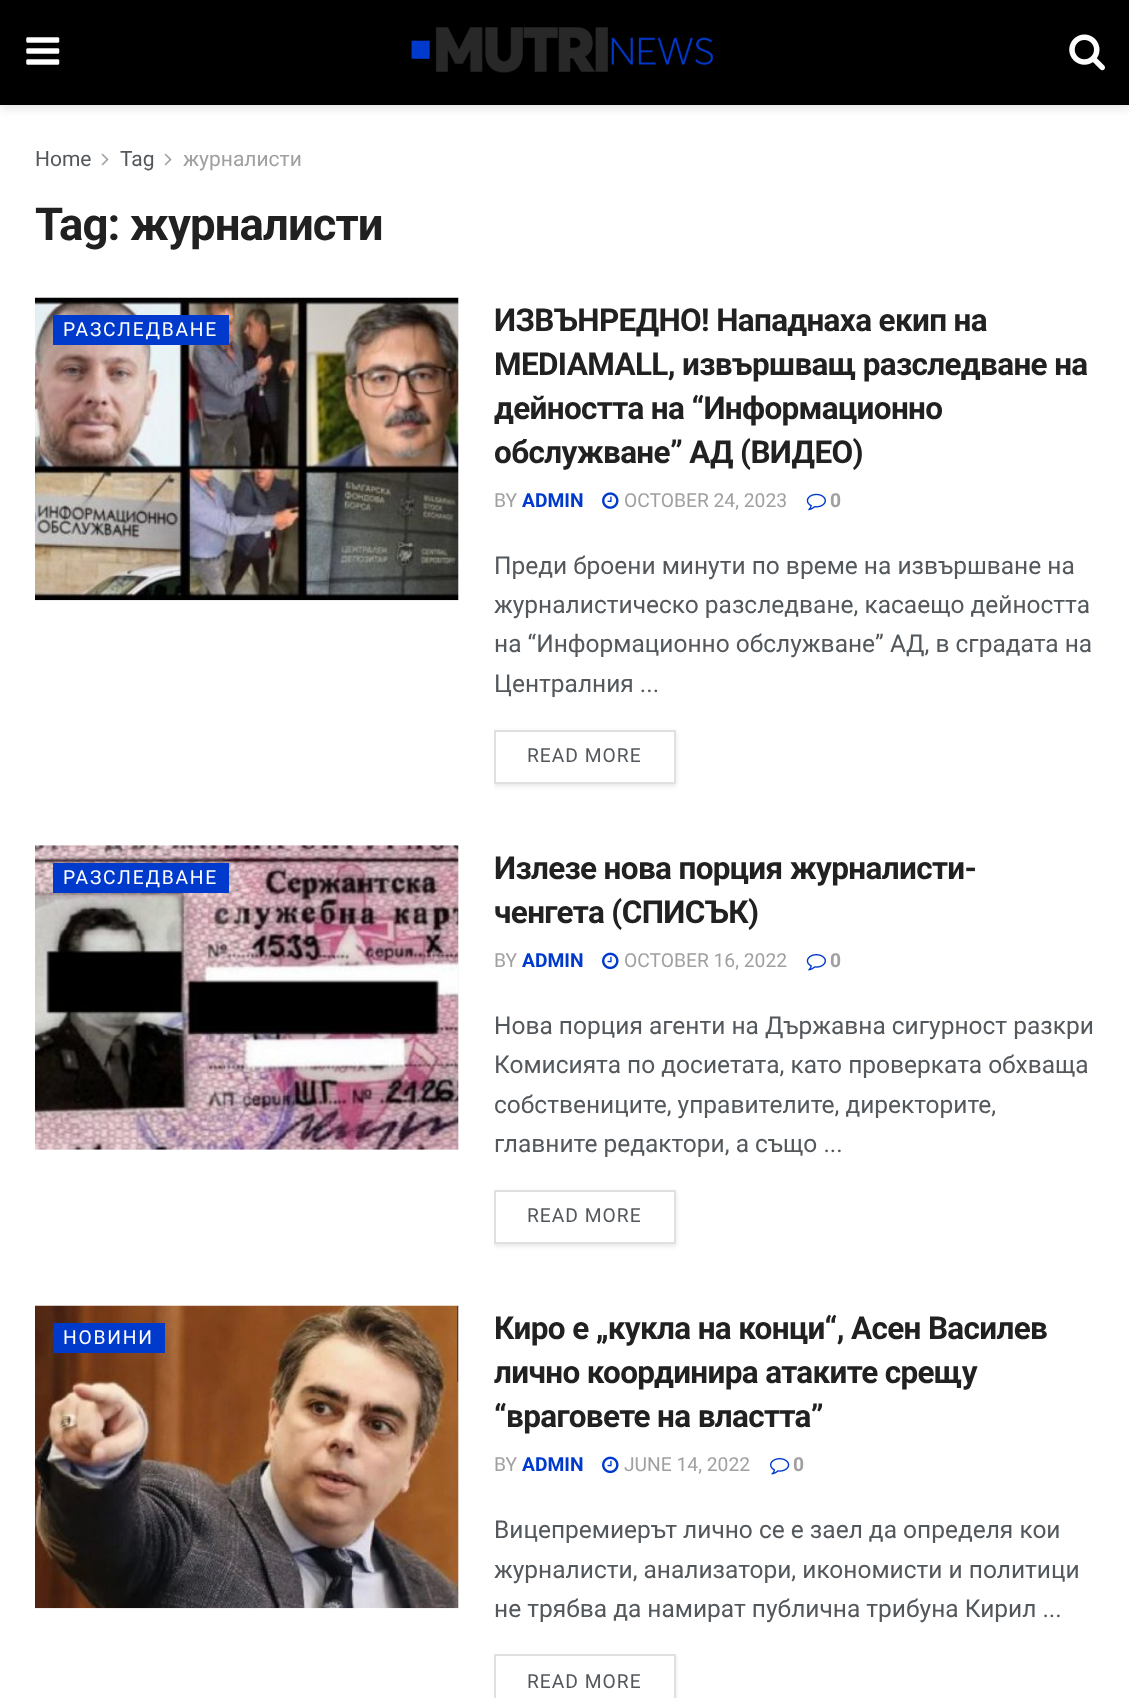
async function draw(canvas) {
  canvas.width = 1129
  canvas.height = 1698
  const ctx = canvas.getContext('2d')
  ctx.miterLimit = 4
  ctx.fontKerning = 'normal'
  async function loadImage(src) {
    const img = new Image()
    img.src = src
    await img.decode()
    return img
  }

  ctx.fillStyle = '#fff'
  ctx.fillRect(0, 0, 1129, 1698)
  ctx.fillStyle = '#0000001a'
  ctx.filter = 'blur(5px)'
  ctx.beginPath()
  ctx.rect(0, 4, 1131, 105)
  ctx.fill()
  ctx.filter = 'none'
  ctx.fillStyle = '#000'
  ctx.fillRect(0, 0, 1129, 105)
  ctx.drawImage(await loadImage('image0.png'), 26, 37, 34, 28)
  ctx.drawImage(await loadImage('image1.png'), 411, 27, 302, 46)
  ctx.drawImage(await loadImage('image2.png'), 1069, 34, 36, 37)
  ctx.font = '21px Roboto'
  ctx.fillStyle = '#53585c'
  ctx.fillText('Home', 35, 166)
  ctx.drawImage(await loadImage('image3.png'), 101, 153, 8, 13)
  ctx.fillText('Tag', 120, 166)
  ctx.drawImage(await loadImage('image3.png'), 164, 153, 8, 13)
  ctx.fillStyle = '#a0a0a0'
  ctx.fillText('журналисти', 183, 166)
  ctx.letterSpacing = '-0.9px'
  ctx.font = 'bold 45.5px Roboto'
  ctx.fillStyle = '#212121'
  ctx.fillText('Tag: журналисти', 35, 240)
  ctx.fillStyle = '#f7f7f7'
  ctx.fillRect(458, 298, 1, 302)
  ctx.drawImage(await loadImage('image5.png'), 83, 297, 83, 1)
  ctx.drawImage(await loadImage('image4.png'), 35, 297, 424, 304)
  ctx.fillStyle = '#003acc'
  ctx.fillRect(53, 315, 176, 30)
  ctx.letterSpacing = '1.75px'
  ctx.font = '19.25px Roboto'
  ctx.fillStyle = '#fff'
  ctx.fillText('РАЗСЛЕДВАНЕ', 63, 336)
  ctx.letterSpacing = '-0.65px'
  ctx.font = 'bold 31.5px Roboto'
  ctx.fillStyle = '#212121'
  ctx.fillText('ИЗВЪНРЕДНО! Нападнаха екип на', 494, 331)
  ctx.fillText('MEDIAMALL, извършващ разследване на', 494, 375)
  ctx.fillText('дейността на “Информационно', 494, 419)
  ctx.fillText('обслужване” АД (ВИДЕО)', 494, 463)
  ctx.letterSpacing = '0px'
  ctx.font = '19.25px Roboto'
  ctx.fillStyle = '#a0a0a0'
  ctx.fillText('BY', 494, 507)
  ctx.font = 'bold 19.25px Roboto'
  ctx.fillStyle = '#003acc'
  ctx.fillText('ADMIN', 522, 507)
  ctx.drawImage(await loadImage('image6.png'), 602, 492, 17, 17)
  ctx.font = '19.25px Roboto'
  ctx.fillStyle = '#a0a0a0'
  ctx.fillText('OCTOBER 24, 2023', 624, 507)
  ctx.drawImage(await loadImage('image7.png'), 806, 493, 20, 18)
  ctx.font = 'bold 19.25px Roboto'
  ctx.fillText('0', 830, 507)
  ctx.font = '24.5px Roboto'
  ctx.fillStyle = '#53585c'
  ctx.fillText('Преди броени минути по време на извършване на', 494, 574)
  ctx.fillText('журналистическо разследване, касаещо дейността', 494, 613)
  ctx.fillText('на “Информационно обслужване” АД, в сградата на', 494, 652)
  ctx.fillText('Централния ...', 494, 692)
  ctx.save()
  ctx.beginPath()
  ctx.rect(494, 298, 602, 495)
  ctx.clip()
  ctx.beginPath()
  ctx.moveTo(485, 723)
  ctx.lineTo(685, 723)
  ctx.lineTo(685, 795)
  ctx.lineTo(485, 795)
  ctx.closePath()
  ctx.moveTo(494, 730)
  ctx.lineTo(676, 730)
  ctx.lineTo(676, 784)
  ctx.lineTo(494, 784)
  ctx.closePath()
  ctx.clip('evenodd')
  ctx.fillStyle = '#0000001a'
  ctx.filter = 'blur(2.5px)'
  ctx.beginPath()
  ctx.rect(494, 732, 182, 54)
  ctx.fill()
  ctx.filter = 'none'
  ctx.restore()
  ctx.strokeStyle = '#e0e0e0'
  ctx.lineWidth = 2
  ctx.strokeRect(495, 731, 180, 52)
  ctx.letterSpacing = '1px'
  ctx.font = '19.25px Roboto'
  ctx.fillText('READ MORE', 527, 762)
  ctx.fillStyle = '#f7f7f7'
  ctx.fillRect(35, 845, 424, 305)
  ctx.drawImage(await loadImage('image9.png'), 83, 845, 82, 305)
  ctx.drawImage(await loadImage('image8.png'), 35, 845, 424, 305)
  ctx.fillStyle = '#003acc'
  ctx.fillRect(53, 863, 176, 30)
  ctx.letterSpacing = '1.75px'
  ctx.fillStyle = '#fff'
  ctx.fillText('РАЗСЛЕДВАНЕ', 63, 884)
  ctx.letterSpacing = '-0.65px'
  ctx.font = 'bold 31.5px Roboto'
  ctx.fillStyle = '#212121'
  ctx.fillText('Излезе нова порция журналисти-', 494, 879)
  ctx.fillText('ченгета (СПИСЪК)', 494, 923)
  ctx.letterSpacing = '0px'
  ctx.font = '19.25px Roboto'
  ctx.fillStyle = '#a0a0a0'
  ctx.fillText('BY', 494, 967)
  ctx.font = 'bold 19.25px Roboto'
  ctx.fillStyle = '#003acc'
  ctx.fillText('ADMIN', 522, 967)
  ctx.drawImage(await loadImage('image10.png'), 602, 952, 17, 18)
  ctx.font = '19.25px Roboto'
  ctx.fillStyle = '#a0a0a0'
  ctx.fillText('OCTOBER 16, 2022', 624, 967)
  ctx.drawImage(await loadImage('image11.png'), 806, 954, 20, 17)
  ctx.font = 'bold 19.25px Roboto'
  ctx.fillText('0', 830, 967)
  ctx.font = '24.5px Roboto'
  ctx.fillStyle = '#53585c'
  ctx.fillText('Нова порция агенти на Държавна сигурност разкри', 494, 1034)
  ctx.fillText('Комисията по досиетата, като проверката обхваща', 494, 1073)
  ctx.fillText('собствениците, управителите, директорите,', 494, 1113)
  ctx.fillText('главните редактори, а също ...', 494, 1152)
  ctx.save()
  ctx.beginPath()
  ctx.rect(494, 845, 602, 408)
  ctx.clip()
  ctx.beginPath()
  ctx.moveTo(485, 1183)
  ctx.lineTo(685, 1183)
  ctx.lineTo(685, 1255)
  ctx.lineTo(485, 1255)
  ctx.closePath()
  ctx.moveTo(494, 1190)
  ctx.lineTo(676, 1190)
  ctx.lineTo(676, 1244)
  ctx.lineTo(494, 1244)
  ctx.closePath()
  ctx.clip('evenodd')
  ctx.fillStyle = '#0000001a'
  ctx.filter = 'blur(2.5px)'
  ctx.beginPath()
  ctx.rect(494, 1192, 182, 54)
  ctx.fill()
  ctx.filter = 'none'
  ctx.restore()
  ctx.strokeRect(495, 1191, 180, 52)
  ctx.letterSpacing = '1px'
  ctx.font = '19.25px Roboto'
  ctx.fillText('READ MORE', 527, 1222)
  ctx.fillStyle = '#f7f7f7'
  ctx.fillRect(458, 1306, 1, 302)
  ctx.drawImage(await loadImage('image5.png'), 83, 1305, 83, 1)
  ctx.drawImage(await loadImage('image12.png'), 35, 1305, 424, 304)
  ctx.fillStyle = '#003acc'
  ctx.fillRect(53, 1323, 112, 30)
  ctx.letterSpacing = '1.75px'
  ctx.fillStyle = '#fff'
  ctx.fillText('НОВИНИ', 63, 1344)
  ctx.letterSpacing = '-0.65px'
  ctx.font = 'bold 31.5px Roboto'
  ctx.fillStyle = '#212121'
  ctx.fillText('Киро е „кукла на конци“, Асен Василев', 494, 1339)
  ctx.fillText('лично координира атаките срещу', 494, 1383)
  ctx.fillText('“враговете на властта”', 494, 1427)
  ctx.letterSpacing = '0px'
  ctx.font = '19.25px Roboto'
  ctx.fillStyle = '#a0a0a0'
  ctx.fillText('BY', 494, 1471)
  ctx.font = 'bold 19.25px Roboto'
  ctx.fillStyle = '#003acc'
  ctx.fillText('ADMIN', 522, 1471)
  ctx.drawImage(await loadImage('image10.png'), 602, 1456, 17, 18)
  ctx.font = '19.25px Roboto'
  ctx.fillStyle = '#a0a0a0'
  ctx.fillText('JUNE 14, 2022', 624, 1471)
  ctx.drawImage(await loadImage('image13.png'), 770, 1458, 20, 17)
  ctx.font = 'bold 19.25px Roboto'
  ctx.fillText('0', 793, 1471)
  ctx.font = '24.5px Roboto'
  ctx.fillStyle = '#53585c'
  ctx.fillText('Вицепремиерът лично се е заел да определя кои', 494, 1538)
  ctx.fillText('журналисти, анализатори, икономисти и политици', 494, 1578)
  ctx.fillText('не трябва да намират публична трибуна Кирил ...', 494, 1617)
  ctx.save()
  ctx.beginPath()
  ctx.rect(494, 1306, 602, 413)
  ctx.clip()
  ctx.beginPath()
  ctx.rect(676, 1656, 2, 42)
  ctx.clip()
  ctx.fillStyle = '#0000001a'
  ctx.filter = 'blur(2.5px)'
  ctx.beginPath()
  ctx.rect(494, 1656, 182, 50)
  ctx.fill()
  ctx.filter = 'none'
  ctx.restore()
  ctx.strokeRect(495, 1655, 180, 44)
  ctx.letterSpacing = '1px'
  ctx.font = '19.25px Roboto'
  ctx.fillText('READ MORE', 527, 1688)
}

draw(document.querySelector('canvas'))
